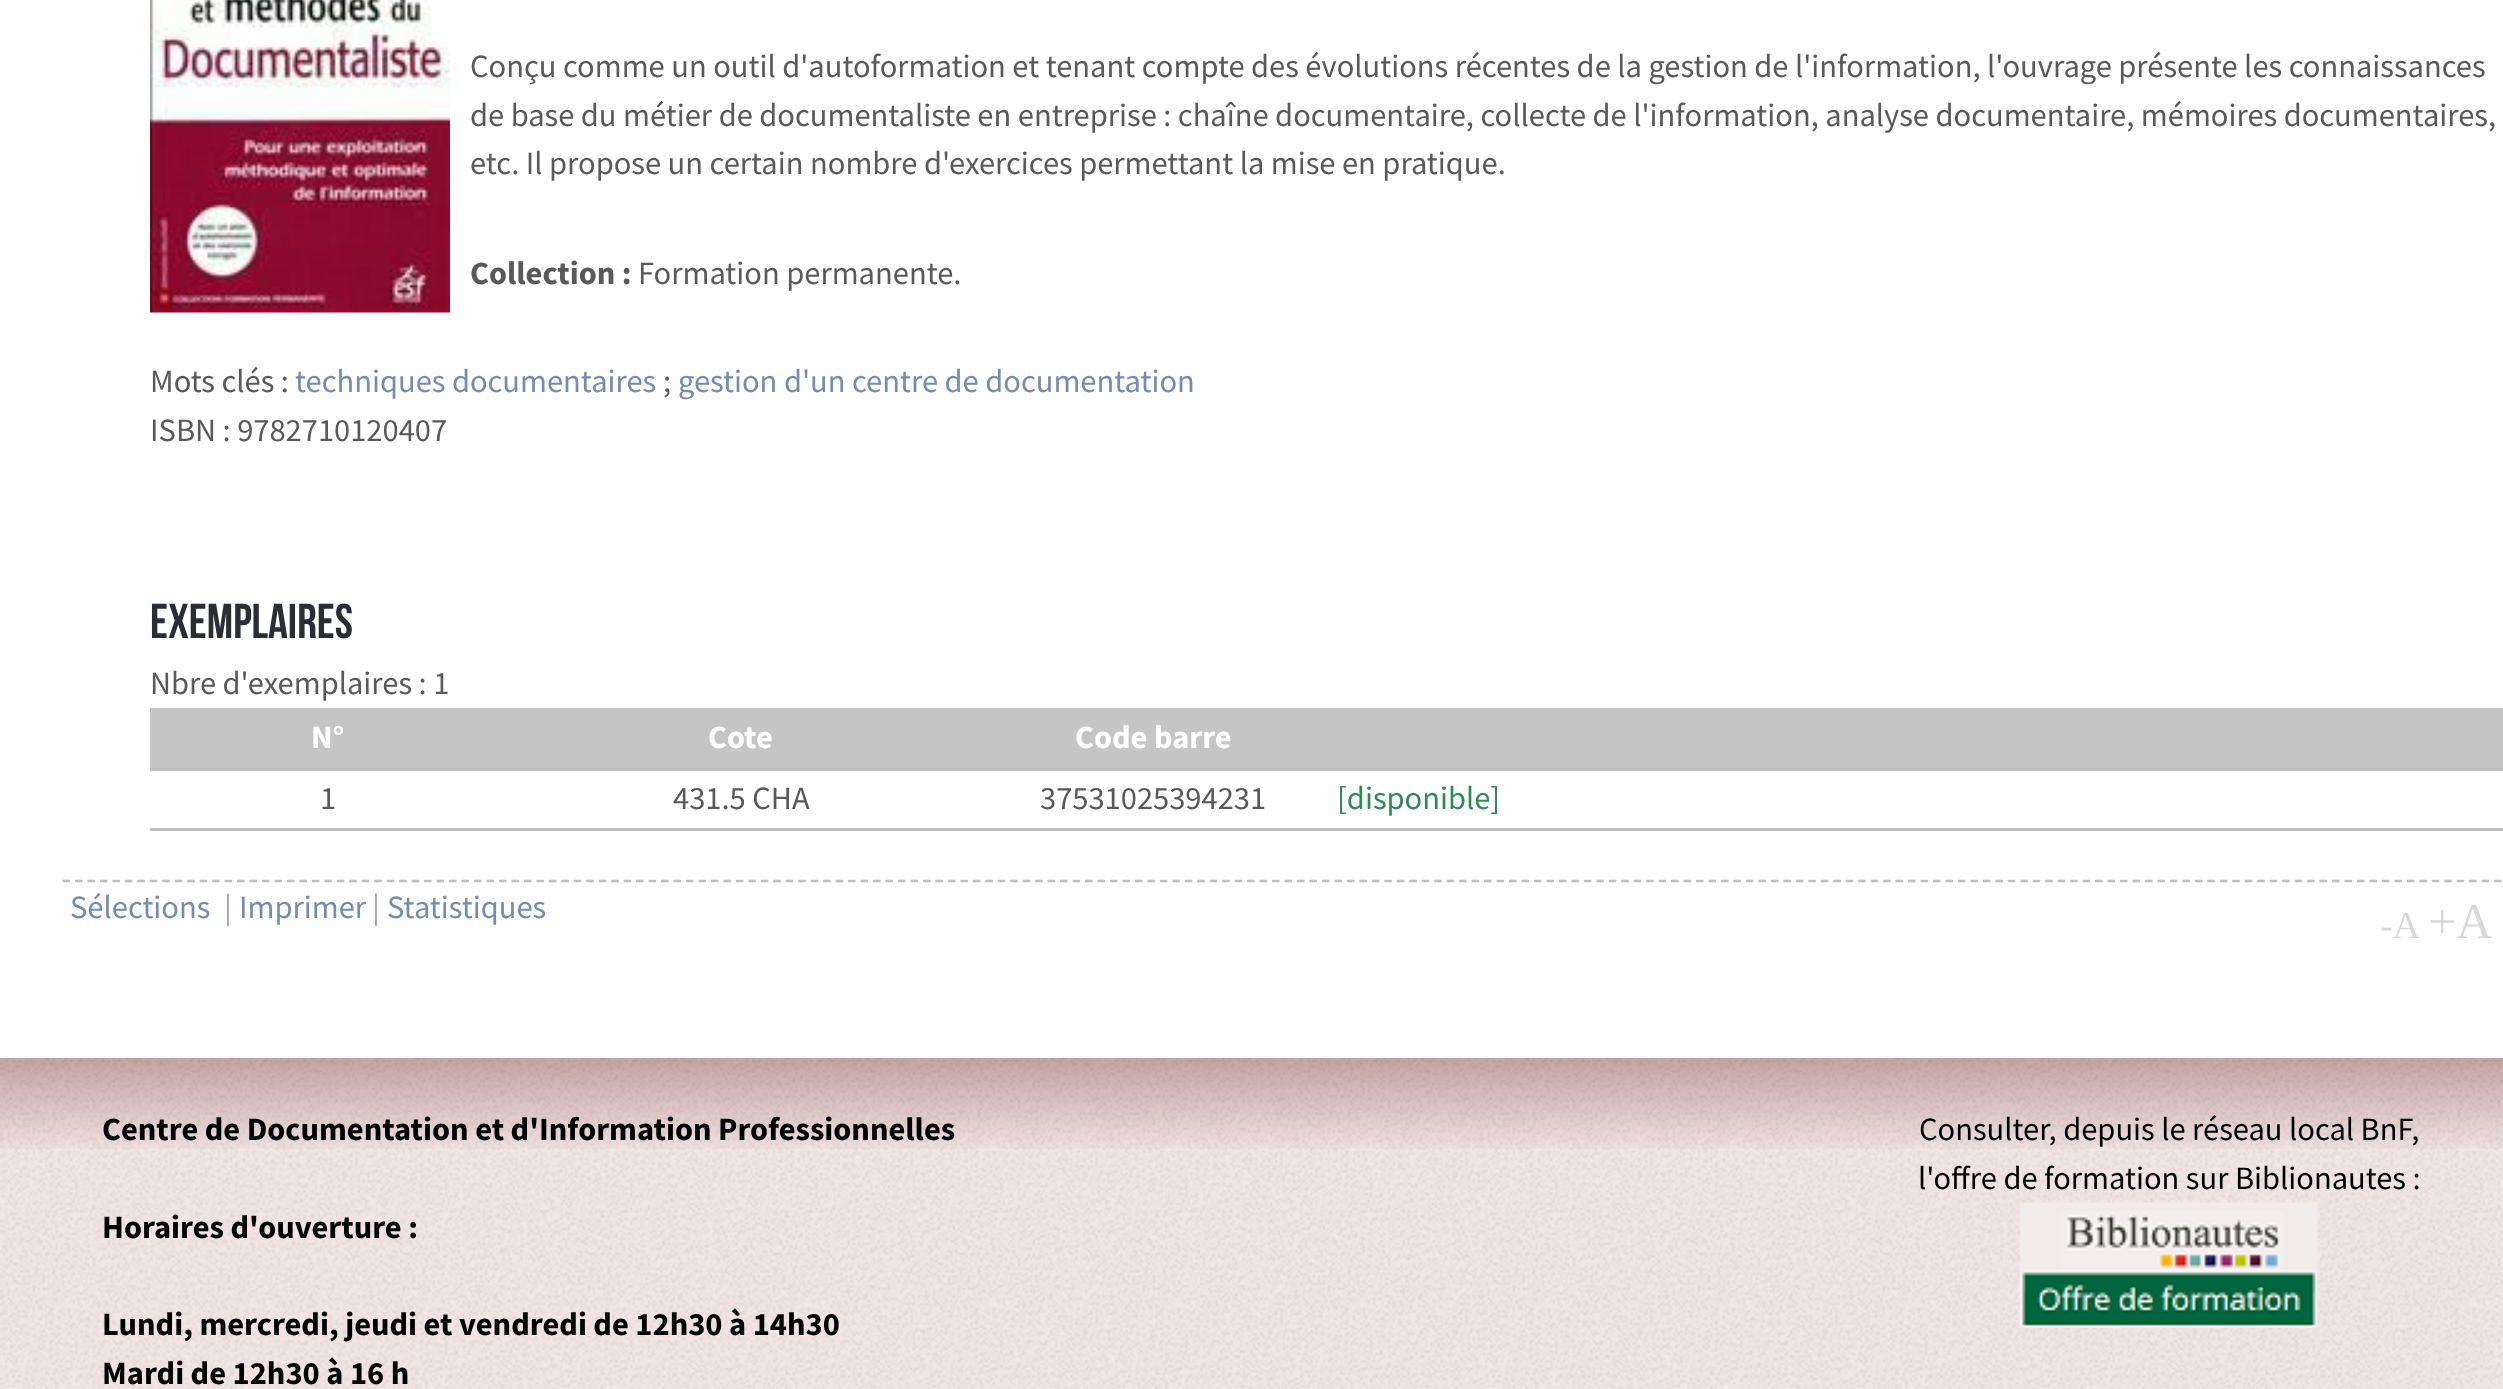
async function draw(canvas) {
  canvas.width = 2503
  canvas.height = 1389
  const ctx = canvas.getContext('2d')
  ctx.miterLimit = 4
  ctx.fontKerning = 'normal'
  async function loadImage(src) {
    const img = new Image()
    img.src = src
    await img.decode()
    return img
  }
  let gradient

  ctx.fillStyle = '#fff'
  ctx.fillRect(0, 0, 2503, 1389)
  ctx.drawImage(await loadImage('image0.png'), 150, 0, 300, 313)
  ctx.font = '32.5px Source Sans Pro'
  ctx.fillStyle = '#595959'
  ctx.fillText('Conçu comme un outil d\'autoformation et tenant compte des évolutions récentes de la gestion de l\'information, l\'ouvrage présente les connaissances', 470, 77)
  ctx.fillText('de base du métier de documentaliste en entreprise : chaîne documentaire, collecte de l\'information, analyse documentaire, mémoires documentaires,', 470, 126)
  ctx.fillText('etc. Il propose un certain nombre d\'exercices permettant la mise en pratique.', 470, 174)
  ctx.font = 'bold 32.5px Source Sans Pro'
  ctx.fillText('Collection :', 470, 284)
  ctx.font = '32.5px Source Sans Pro'
  ctx.fillText('Formation permanente.', 638, 284)
  ctx.fillText('Mots clés :', 150, 392)
  ctx.fillStyle = '#748caf'
  ctx.fillText('techniques documentaires', 295, 392)
  ctx.fillStyle = '#595959'
  ctx.fillText(';', 663, 392)
  ctx.fillStyle = '#748caf'
  ctx.fillText('gestion d\'un centre de documentation', 678, 392)
  ctx.fillStyle = '#595959'
  ctx.fillText('ISBN : 9782710120407', 150, 441)
  ctx.font = '48.75px Bebas Neue'
  ctx.fillStyle = '#2a2e34'
  ctx.fillText('Exemplaires', 150, 638)
  ctx.font = '32.5px Source Sans Pro'
  ctx.fillStyle = '#595959'
  ctx.fillText('Nbre d\'exemplaires : 1', 150, 694)
  ctx.fillStyle = '#bfbfbf'
  ctx.fillRect(150, 768, 2353, 3)
  ctx.fillStyle = '#c5c5c5'
  ctx.fillRect(150, 708, 2353, 60)
  ctx.font = 'bold 32.5px Source Sans Pro'
  ctx.fillStyle = '#fff'
  ctx.fillText('N°', 311, 748)
  ctx.fillText('Cote', 708, 748)
  ctx.fillText('Code barre', 1075, 748)
  ctx.fillStyle = '#bfbfbf'
  ctx.fillRect(150, 828, 2353, 3)
  ctx.font = '32.5px Source Sans Pro'
  ctx.fillStyle = '#595959'
  ctx.fillText('1', 320, 809)
  ctx.fillText('431.5 CHA', 673, 809)
  ctx.fillText('37531025394231', 1040, 809)
  ctx.fillStyle = '#2e8b57'
  ctx.fillText('[disponible]', 1337, 809)
  ctx.beginPath()
  ctx.moveTo(62.5, 881)
  ctx.lineTo(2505, 881)
  ctx.strokeStyle = '#bfbfbf'
  ctx.lineWidth = 2.5
  ctx.setLineDash([7.5, 4.97])
  ctx.stroke()
  ctx.fillStyle = '#748caf'
  ctx.fillText('Sélections', 70, 918)
  ctx.fillStyle = '#a6a6a6'
  ctx.fillText('|', 224, 918)
  ctx.fillStyle = '#748caf'
  ctx.fillText('Imprimer', 239, 918)
  ctx.fillStyle = '#a6a6a6'
  ctx.fillText('|', 372, 918)
  ctx.fillStyle = '#748caf'
  ctx.fillText('Statistiques', 387, 918)
  ctx.font = '38px Liberation Serif'
  ctx.fillStyle = '#d8d8d8'
  ctx.fillText('-A', 2380, 938)
  ctx.font = '50px Liberation Serif'
  ctx.fillText('+A', 2428, 938)
  ctx.fillStyle = '#f3e7e6'
  ctx.fillRect(0, 1058, 2503, 331)
  ctx.drawImage(await loadImage('image1.png'), 0, 1057, 2503, 332)
  gradient = ctx.createLinearGradient(1278, 1057, 1278, 1170)
  gradient.addColorStop(0, '#5f09054d')
  gradient.addColorStop(0.85, '#5f090503')
  gradient.addColorStop(1, '#5f090500')
  ctx.fillStyle = gradient
  ctx.fillRect(0, 1058, 2503, 91)
  ctx.font = 'bold 32.5px Source Sans Pro'
  ctx.fillStyle = '#000'
  ctx.fillText('Centre de Documentation et d\'Information Professionnelles', 102, 1140)
  ctx.fillText('Horaires d\'ouverture :', 102, 1238)
  ctx.fillText('Lundi, mercredi, jeudi et vendredi de 12h30 à 14h30', 102, 1335)
  ctx.fillText('Mardi de 12h30 à 16 h', 102, 1384)
  ctx.font = '32.5px Source Sans Pro'
  ctx.fillText('Consulter, depuis le réseau local BnF,', 1919, 1140)
  ctx.fillText('l\'offre de formation sur Biblionautes :', 1918, 1189)
  ctx.drawImage(await loadImage('image2.png'), 2020, 1202, 298, 126)
}

draw(document.querySelector('canvas'))
